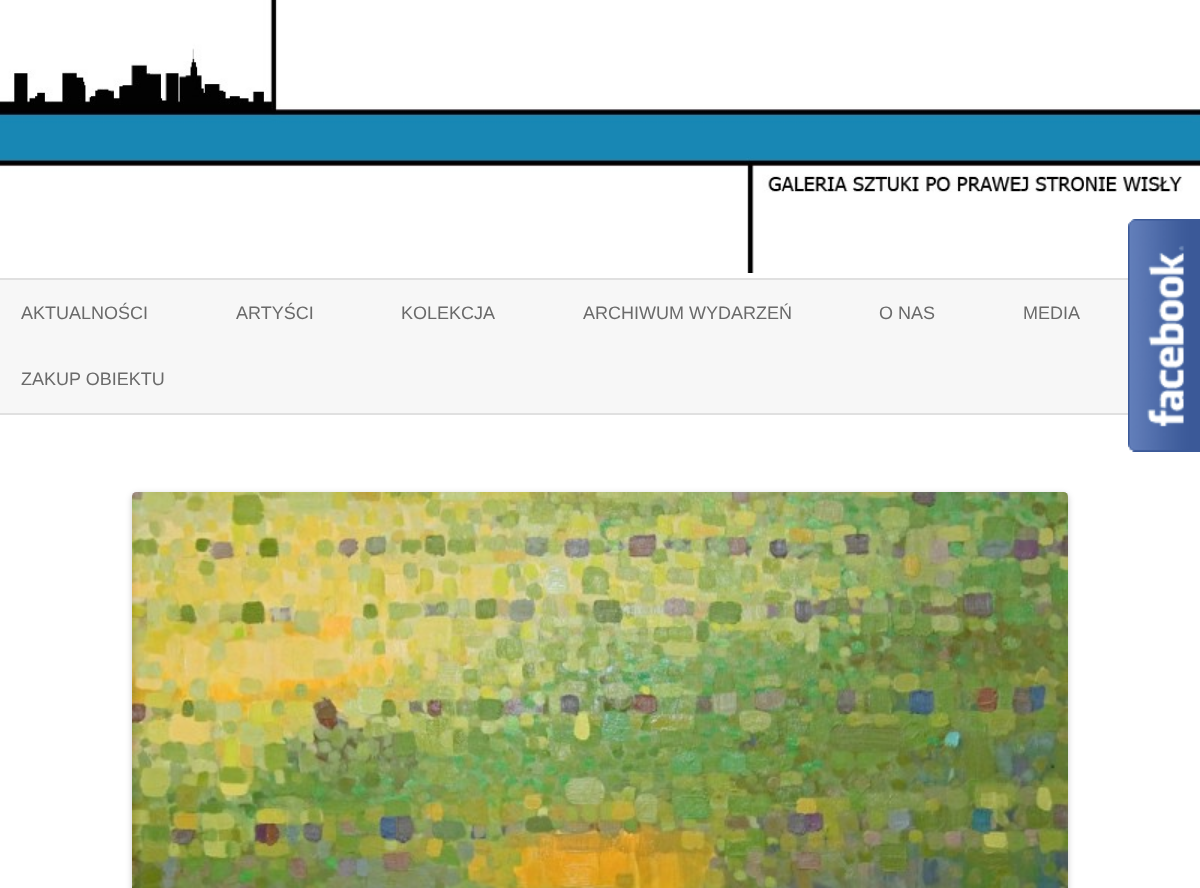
async function draw(canvas) {
  canvas.width = 1200
  canvas.height = 888
  const ctx = canvas.getContext('2d')
  ctx.miterLimit = 4
  ctx.fontKerning = 'normal'
  async function loadImage(src) {
    const img = new Image()
    img.src = src
    await img.decode()
    return img
  }

  ctx.fillStyle = '#fff'
  ctx.fillRect(0, 0, 1200, 888)
  ctx.drawImage(await loadImage('image0.png'), 0, 0, 1200, 273)
  ctx.fillStyle = '#f7f7f7'
  ctx.fillRect(0, 280, 1128, 133)
  ctx.fillStyle = '#e0e0e0'
  ctx.fillRect(0, 278, 1128, 2)
  ctx.fillRect(0, 413, 1128, 2)
  ctx.font = '18px Liberation Sans'
  ctx.fillStyle = '#6a6a6a'
  ctx.fillText('AKTUALNOŚCI', 21, 319)
  ctx.fillText('ARTYŚCI', 236, 319)
  ctx.fillText('KOLEKCJA', 401, 319)
  ctx.fillText('ARCHIWUM WYDARZEŃ', 583, 319)
  ctx.fillText('O NAS', 879, 319)
  ctx.fillText('MEDIA', 1023, 319)
  ctx.fillText('ZAKUP OBIEKTU', 21, 385)
  ctx.fillStyle = '#00000033'
  ctx.filter = 'blur(3px)'
  ctx.beginPath()
  ctx.roundRect(132, 494, 936, 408, 5)
  ctx.fill()
  ctx.filter = 'none'
  ctx.drawImage(await loadImage('image1.png'), 132, 492, 936, 396)
  ctx.drawImage(await loadImage('image2.png'), 1128, 219, 72, 233)
}

draw(document.querySelector('canvas'))
